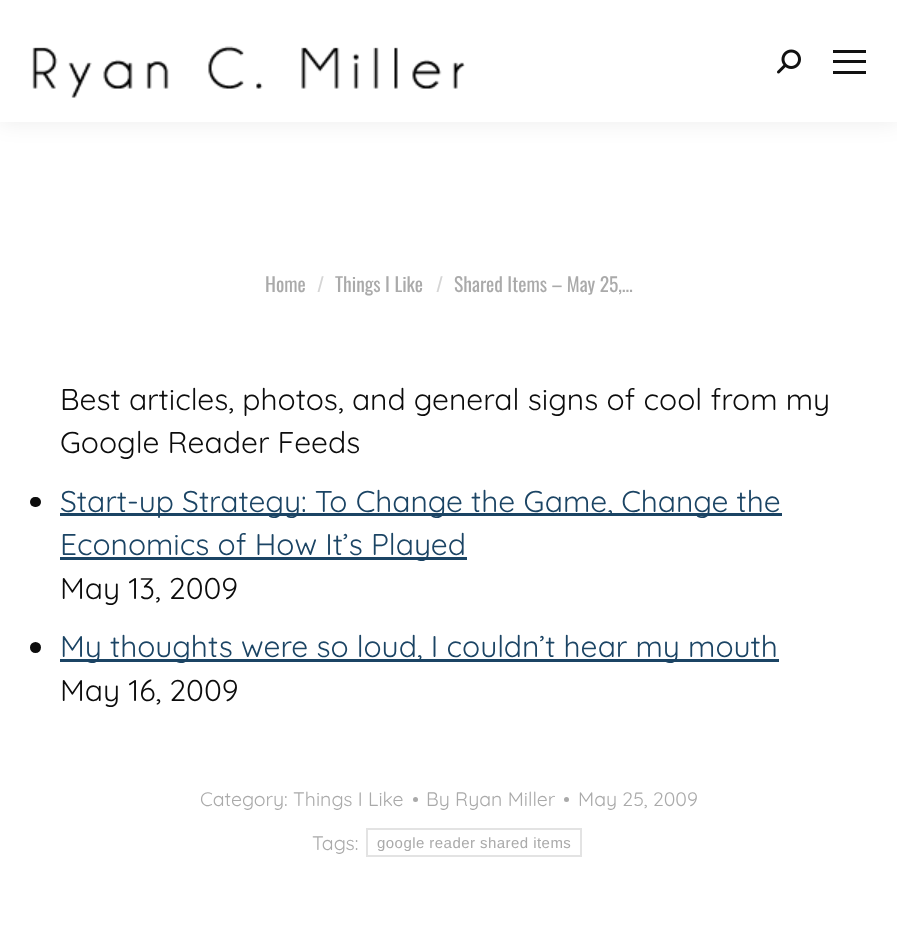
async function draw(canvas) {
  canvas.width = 897
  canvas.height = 933
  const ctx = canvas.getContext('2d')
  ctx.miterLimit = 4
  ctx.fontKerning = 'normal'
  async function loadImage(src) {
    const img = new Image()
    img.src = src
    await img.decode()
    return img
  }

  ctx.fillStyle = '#fff'
  ctx.fillRect(0, 0, 897, 933)
  ctx.fillStyle = '#00000012'
  ctx.filter = 'blur(11px)'
  ctx.beginPath()
  ctx.rect(-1, -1, 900, 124)
  ctx.fill()
  ctx.filter = 'none'
  ctx.fillStyle = '#fff'
  ctx.fillRect(0, 0, 897, 122)
  ctx.drawImage(await loadImage('image0.png'), 32, 46, 433, 52)
  ctx.drawImage(await loadImage('image1.png'), 777, 49, 24, 25)
  ctx.fillStyle = '#111'
  ctx.fillRect(833, 50, 33, 3)
  ctx.fillRect(833, 60, 33, 3)
  ctx.fillRect(833, 71, 33, 3)
  ctx.font = '19.5px Oswald'
  ctx.fillStyle = '#aaa'
  ctx.fillText('Home', 265, 292)
  ctx.fillStyle = '#d5d5d5'
  ctx.fillText('/', 317, 292)
  ctx.fillStyle = '#aaa'
  ctx.fillText('Things I Like', 335, 292)
  ctx.fillStyle = '#d5d5d5'
  ctx.fillText('/', 436, 292)
  ctx.fillStyle = '#aaa'
  ctx.fillText('Shared Items – May 25,…', 454, 292)
  ctx.font = '30px Quicksand'
  ctx.fillStyle = '#0c0c0c'
  ctx.fillText('Best articles, photos, and general signs of cool from my', 60, 410)
  ctx.fillText('Google Reader Feeds', 60, 453)
  ctx.beginPath()
  ctx.roundRect(30, 497, 11, 10, 5)
  ctx.fill()
  ctx.fillStyle = '#1b4464'
  ctx.fillRect(60, 513, 722, 3)
  ctx.fillText('Start-up Strategy: To Change the Game, Change the', 60, 512)
  ctx.fillRect(60, 557, 407, 3)
  ctx.fillText('Economics of How It’s Played', 60, 555)
  ctx.fillStyle = '#0c0c0c'
  ctx.fillText('May 13, 2009', 60, 599)
  ctx.beginPath()
  ctx.arc(35.5, 647.5, 5.5, 0, 2 * Math.PI)
  ctx.fill()
  ctx.fillStyle = '#1b4464'
  ctx.fillRect(60, 659, 719, 3)
  ctx.fillText('My thoughts were so loud, I couldn’t hear my mouth', 60, 657)
  ctx.fillStyle = '#0c0c0c'
  ctx.fillText('May 16, 2009', 60, 701)
  ctx.font = '19.5px Quicksand'
  ctx.fillStyle = '#aaa'
  ctx.fillText('Category: Things I Like', 200, 806)
  ctx.beginPath()
  ctx.arc(415.5, 799.5, 2.5, 0, 2 * Math.PI)
  ctx.fill()
  ctx.fillText('By Ryan Miller', 426, 806)
  ctx.beginPath()
  ctx.arc(566.5, 799.5, 2.5, 0, 2 * Math.PI)
  ctx.fill()
  ctx.fillText('May 25, 2009', 578, 806)
  ctx.fillText('Tags:', 312, 850)
  ctx.strokeStyle = '#e3e3e3'
  ctx.lineWidth = 2
  ctx.strokeRect(367, 829, 214, 27)
  ctx.letterSpacing = '0.45px'
  ctx.font = '15px Liberation Sans'
  ctx.fillText('google reader shared items', 377, 848)
}

draw(document.querySelector('canvas'))
